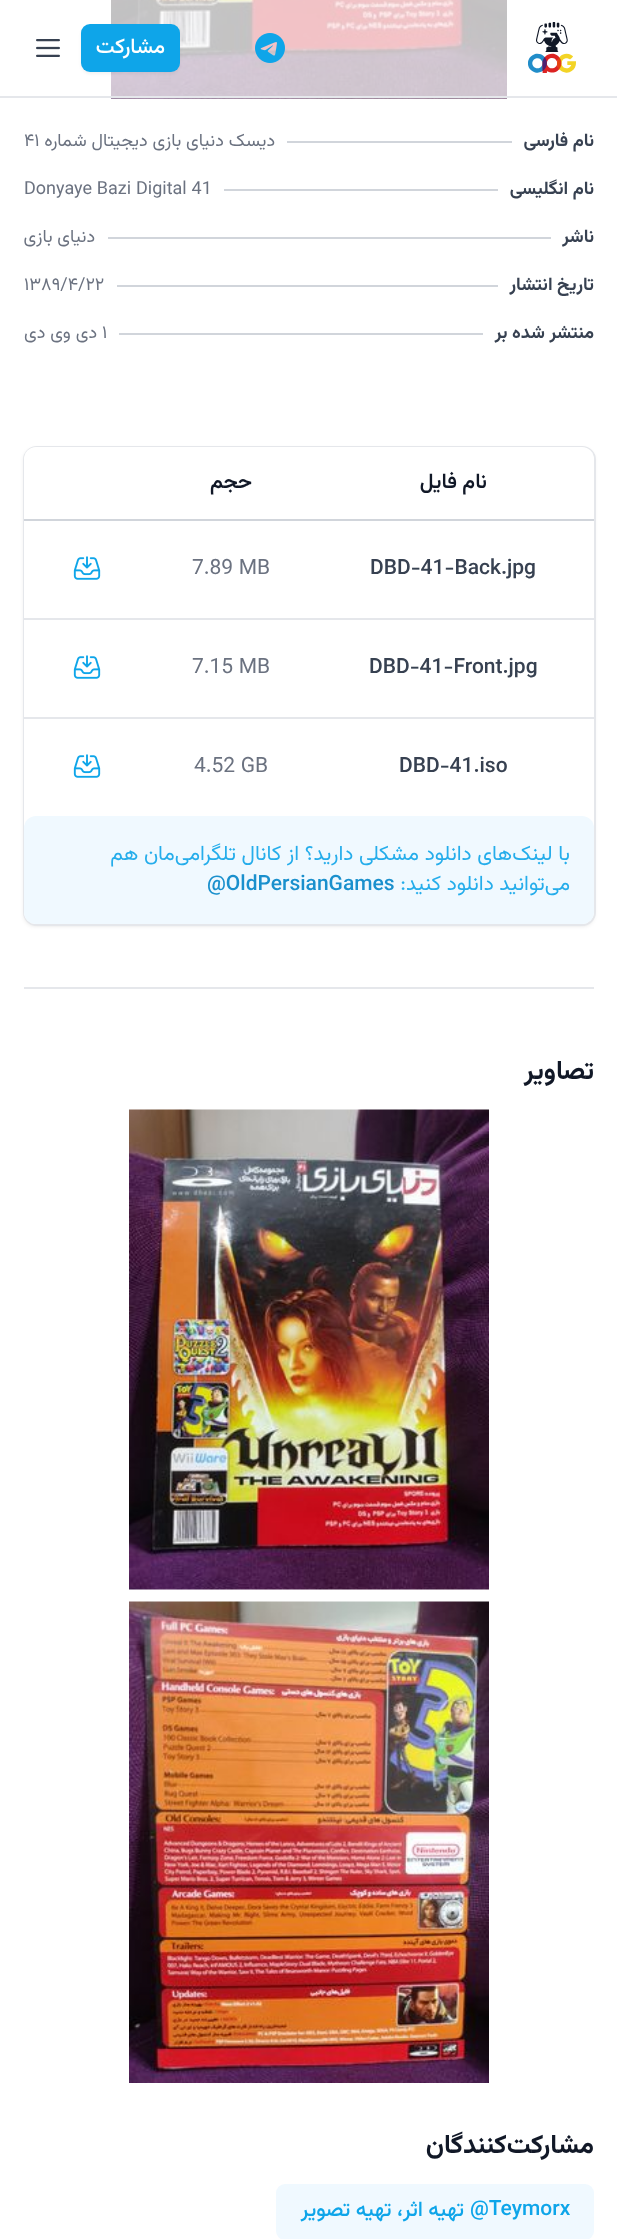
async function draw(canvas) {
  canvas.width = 617
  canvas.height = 2239
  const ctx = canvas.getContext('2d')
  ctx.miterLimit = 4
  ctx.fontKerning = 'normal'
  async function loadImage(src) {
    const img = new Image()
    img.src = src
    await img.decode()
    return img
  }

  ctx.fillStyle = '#fff'
  ctx.fillRect(0, 0, 617, 2239)
  ctx.drawImage(await loadImage('image3.png'), 111, 0, 396, 99)
  ctx.fillStyle = '#e5e7eb'
  ctx.fillRect(0, 96, 617, 2)
  ctx.drawImage(await loadImage('image0.png'), 528, 22, 48, 51)
  ctx.drawImage(await loadImage('image1.png'), 255, 33, 30, 30)
  ctx.fillStyle = '#0000000d'
  ctx.filter = 'blur(1.5px)'
  ctx.beginPath()
  ctx.roundRect(81, 26, 99, 48, 9)
  ctx.fill()
  ctx.filter = 'none'
  ctx.fillStyle = '#0ea5e9'
  ctx.beginPath()
  ctx.roundRect(81, 24, 99, 48, 9)
  ctx.fill()
  ctx.direction = 'rtl'
  ctx.font = '500 21px Vazirmatn'
  ctx.fillStyle = '#fff'
  ctx.fillText('مشارکت', 165, 53)
  ctx.drawImage(await loadImage('image2.png'), 36, 39, 24, 18)
  ctx.font = 'bold 18px Vazirmatn'
  ctx.fillStyle = '#374151'
  ctx.fillText('نام فارسی', 594, 146)
  ctx.fillStyle = '#d1d5db'
  ctx.fillRect(287, 141, 225, 2)
  ctx.font = '18px Vazirmatn'
  ctx.fillStyle = '#6b7280'
  ctx.fillText('دیسک دنیای بازی دیجیتال شماره', 275, 146)
  ctx.direction = 'ltr'
  ctx.fillText('۴۱', 24, 146)
  ctx.direction = 'rtl'
  ctx.font = 'bold 18px Vazirmatn'
  ctx.fillStyle = '#374151'
  ctx.fillText('نام انگلیسی', 594, 194)
  ctx.fillStyle = '#d1d5db'
  ctx.fillRect(224, 189, 274, 2)
  ctx.direction = 'ltr'
  ctx.font = '18px Vazirmatn'
  ctx.fillStyle = '#6b7280'
  ctx.fillText('Donyaye Bazi Digital 41', 24, 194)
  ctx.direction = 'rtl'
  ctx.font = 'bold 18px Vazirmatn'
  ctx.fillStyle = '#374151'
  ctx.fillText('ناشر', 594, 242)
  ctx.fillStyle = '#d1d5db'
  ctx.fillRect(108, 237, 443, 2)
  ctx.font = '18px Vazirmatn'
  ctx.fillStyle = '#6b7280'
  ctx.fillText('دنیای بازی', 95, 242)
  ctx.font = 'bold 18px Vazirmatn'
  ctx.fillStyle = '#374151'
  ctx.fillText('تاریخ انتشار', 594, 290)
  ctx.fillStyle = '#d1d5db'
  ctx.fillRect(117, 285, 381, 2)
  ctx.direction = 'ltr'
  ctx.font = '18px Vazirmatn'
  ctx.fillStyle = '#6b7280'
  ctx.fillText('۱۳۸۹/۴/۲۲', 24, 290)
  ctx.direction = 'rtl'
  ctx.font = 'bold 18px Vazirmatn'
  ctx.fillStyle = '#374151'
  ctx.fillText('منتشر شده بر', 594, 338)
  ctx.fillStyle = '#d1d5db'
  ctx.fillRect(119, 333, 364, 2)
  ctx.direction = 'ltr'
  ctx.font = '18px Vazirmatn'
  ctx.fillStyle = '#6b7280'
  ctx.fillText('۱', 102, 338)
  ctx.direction = 'rtl'
  ctx.fillText('دی وی دی', 97, 338)
  ctx.fillStyle = '#0000001a'
  ctx.filter = 'blur(1.5px)'
  ctx.beginPath()
  ctx.roundRect(26, 450, 567, 474, 11)
  ctx.fill()
  ctx.filter = 'none'
  ctx.filter = 'blur(2px)'
  ctx.beginPath()
  ctx.roundRect(24, 449, 570, 477, 12)
  ctx.fill()
  ctx.filter = 'none'
  ctx.beginPath()
  ctx.roundRect(24, 447, 571, 478, 13)
  ctx.strokeStyle = '#e5e7eb'
  ctx.lineWidth = 2
  ctx.stroke()
  ctx.fillStyle = '#fff'
  ctx.beginPath()
  ctx.roundRect(24, 447, 570, 477, 12)
  ctx.fill()
  ctx.font = '600 21px Vazirmatn'
  ctx.fillStyle = '#111827'
  ctx.fillText('نام فایل', 487, 488)
  ctx.fillText('حجم', 252, 488)
  ctx.fillStyle = '#d1d5db'
  ctx.fillRect(24, 519, 570, 2)
  ctx.direction = 'ltr'
  ctx.font = '500 21px Vazirmatn'
  ctx.fillStyle = '#374151'
  ctx.fillText('DBD-41-Back.jpg', 370, 574)
  ctx.font = '21px Vazirmatn'
  ctx.fillStyle = '#6b7280'
  ctx.fillText('7.89 MB', 192, 574)
  ctx.drawImage(await loadImage('image4.png'), 73, 556, 28, 24)
  ctx.fillStyle = '#e5e7eb'
  ctx.fillRect(24, 618, 570, 2)
  ctx.font = '500 21px Vazirmatn'
  ctx.fillStyle = '#374151'
  ctx.fillText('DBD-41-Front.jpg', 369, 673)
  ctx.font = '21px Vazirmatn'
  ctx.fillStyle = '#6b7280'
  ctx.fillText('7.15 MB', 192, 673)
  ctx.drawImage(await loadImage('image4.png'), 73, 655, 28, 24)
  ctx.fillStyle = '#e5e7eb'
  ctx.fillRect(24, 717, 570, 2)
  ctx.font = '500 21px Vazirmatn'
  ctx.fillStyle = '#374151'
  ctx.fillText('DBD-41.iso', 399, 772)
  ctx.font = '21px Vazirmatn'
  ctx.fillStyle = '#6b7280'
  ctx.fillText('4.52 GB', 194, 772)
  ctx.drawImage(await loadImage('image4.png'), 73, 754, 28, 24)
  ctx.fillStyle = '#f0f9ff'
  ctx.beginPath()
  ctx.roundRect(24, 816, 570, 108, 12)
  ctx.fill()
  ctx.direction = 'rtl'
  ctx.fillStyle = '#25adeb'
  ctx.fillText('با لینک‌های دانلود مشکلی دارید؟ از کانال تلگرامی‌مان هم', 570, 860)
  ctx.fillText('می‌توانید دانلود کنید:', 570, 890)
  ctx.direction = 'ltr'
  ctx.font = '500 21px Vazirmatn'
  ctx.fillStyle = '#1a90cd'
  ctx.fillText('@OldPersianGames', 207, 890)
  ctx.fillStyle = '#e5e7eb'
  ctx.fillRect(24, 987, 570, 2)
  ctx.direction = 'rtl'
  ctx.font = 'bold 26.25px Vazirmatn'
  ctx.fillStyle = '#111827'
  ctx.fillText('تصاویر', 594, 1079)
  ctx.drawImage(await loadImage('image5.png'), 129, 1109, 360, 481)
  ctx.drawImage(await loadImage('image6.png'), 129, 1601, 360, 482)
  ctx.fillText('مشارکت‌کنندگان', 594, 2153)
  ctx.fillStyle = '#f0f9ff'
  ctx.beginPath()
  ctx.roundRect(276, 2184, 318, 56, 9)
  ctx.fill()
  ctx.direction = 'ltr'
  ctx.font = '500 21px Vazirmatn'
  ctx.fillStyle = '#0ea5e9'
  ctx.fillText('@Teymorx', 470, 2215)
  ctx.direction = 'rtl'
  ctx.fillText('تهیه اثر، تهیه تصویر', 464, 2216)
}

draw(document.querySelector('canvas'))
